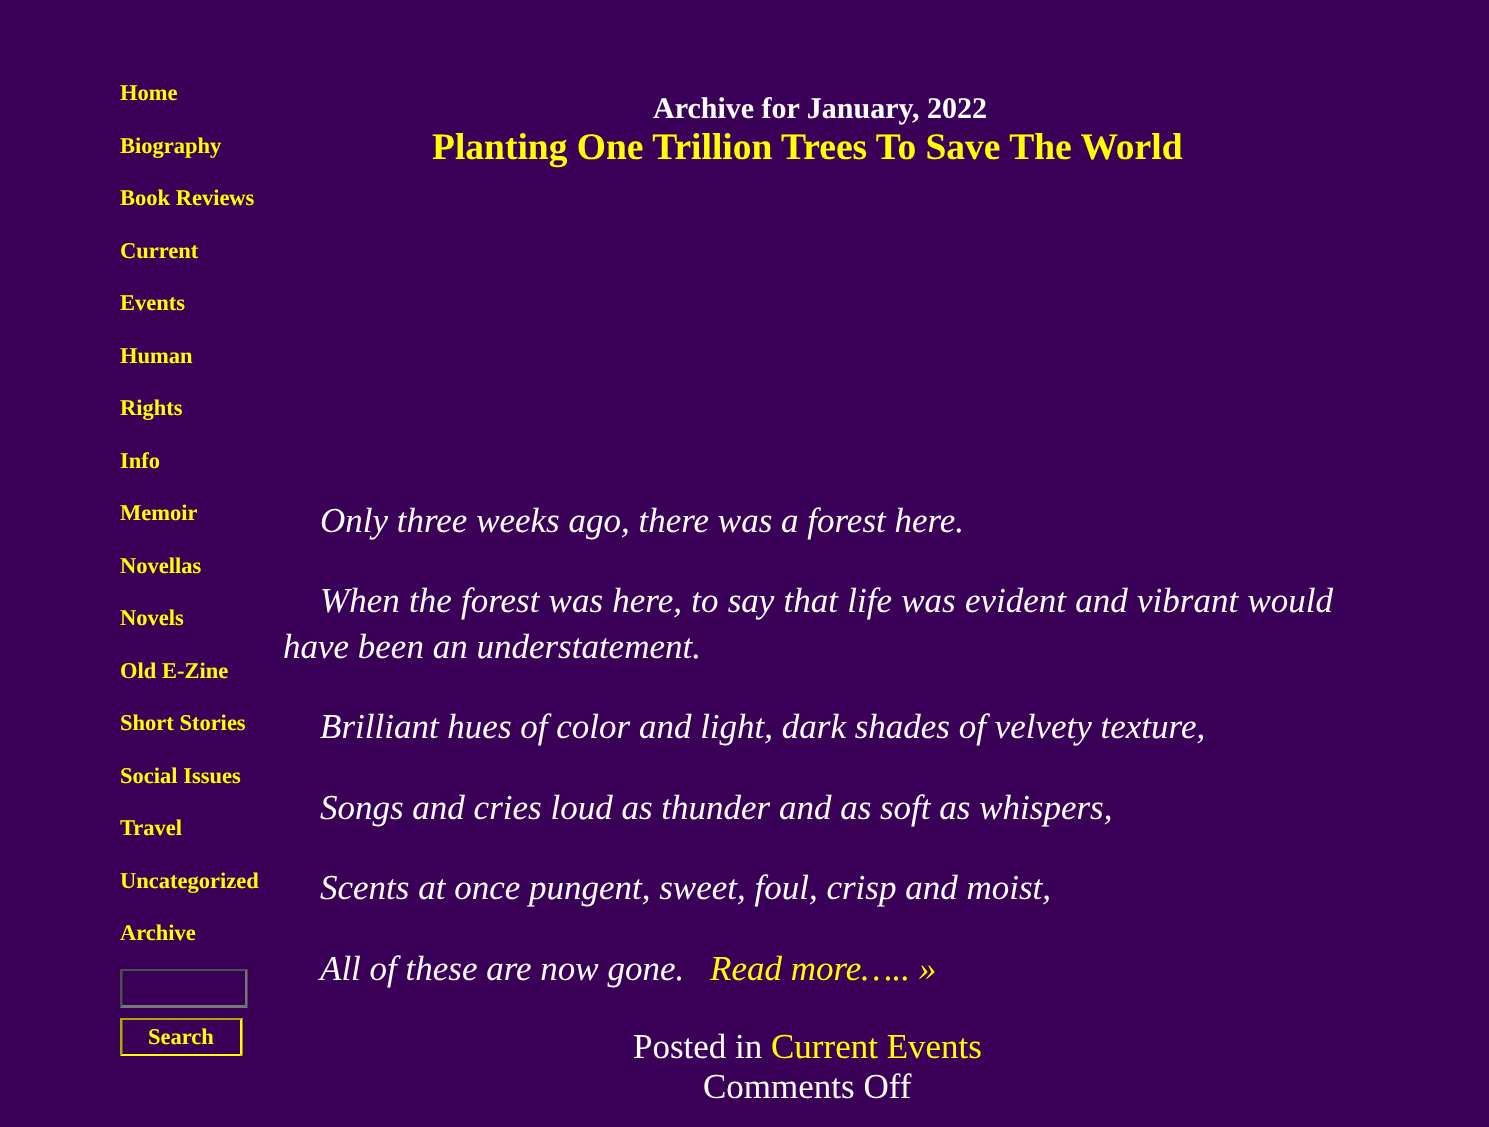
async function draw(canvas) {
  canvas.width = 1489
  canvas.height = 1127
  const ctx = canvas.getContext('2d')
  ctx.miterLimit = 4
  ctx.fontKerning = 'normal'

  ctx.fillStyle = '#3a0057'
  ctx.fillRect(0, 0, 1489, 1127)
  ctx.font = 'bold 22.5px Liberation Serif'
  ctx.fillStyle = '#ff0'
  ctx.fillText('Home', 120, 100)
  ctx.fillText('Biography', 120, 153)
  ctx.fillText('Book Reviews', 120, 205)
  ctx.fillText('Current', 120, 258)
  ctx.fillText('Events', 120, 310)
  ctx.fillText('Human', 120, 363)
  ctx.fillText('Rights', 120, 415)
  ctx.fillText('Info', 120, 468)
  ctx.fillText('Memoir', 120, 520)
  ctx.fillText('Novellas', 120, 573)
  ctx.fillText('Novels', 120, 625)
  ctx.fillText('Old E-Zine', 120, 678)
  ctx.fillText('Short Stories', 120, 730)
  ctx.fillText('Social Issues', 120, 783)
  ctx.fillText('Travel', 120, 835)
  ctx.fillText('Uncategorized', 120, 888)
  ctx.fillText('Archive', 120, 940)
  ctx.fillStyle = '#4f4f4f'
  ctx.beginPath()
  ctx.moveTo(120, 969)
  ctx.lineTo(248, 969)
  ctx.lineTo(245, 971)
  ctx.lineTo(122, 971)
  ctx.closePath()
  ctx.fill()
  ctx.fillStyle = '#767676'
  ctx.beginPath()
  ctx.moveTo(247.5, 969)
  ctx.lineTo(247.5, 1007.5)
  ctx.lineTo(245, 1005)
  ctx.lineTo(245, 971)
  ctx.closePath()
  ctx.fill()
  ctx.beginPath()
  ctx.moveTo(248, 1008)
  ctx.lineTo(120, 1008)
  ctx.lineTo(122, 1005)
  ctx.lineTo(245, 1005)
  ctx.closePath()
  ctx.fill()
  ctx.fillStyle = '#4f4f4f'
  ctx.beginPath()
  ctx.moveTo(120, 1007.5)
  ctx.lineTo(120, 969)
  ctx.lineTo(122.5, 971)
  ctx.lineTo(122.5, 1005)
  ctx.closePath()
  ctx.fill()
  ctx.fillStyle = '#aa0'
  ctx.beginPath()
  ctx.moveTo(120, 1018)
  ctx.lineTo(242, 1018)
  ctx.lineTo(240, 1020)
  ctx.lineTo(122, 1020)
  ctx.closePath()
  ctx.fill()
  ctx.fillStyle = '#ff0'
  ctx.beginPath()
  ctx.moveTo(242.5, 1017.5)
  ctx.lineTo(242.5, 1056)
  ctx.lineTo(240, 1054)
  ctx.lineTo(240, 1020)
  ctx.closePath()
  ctx.fill()
  ctx.beginPath()
  ctx.moveTo(242, 1056)
  ctx.lineTo(120, 1056)
  ctx.lineTo(122, 1054)
  ctx.lineTo(240, 1054)
  ctx.closePath()
  ctx.fill()
  ctx.fillStyle = '#aa0'
  ctx.beginPath()
  ctx.moveTo(120, 1056)
  ctx.lineTo(120, 1017.5)
  ctx.lineTo(122.5, 1020)
  ctx.lineTo(122.5, 1054)
  ctx.closePath()
  ctx.fill()
  ctx.fillStyle = '#ff0'
  ctx.fillText('Search', 148, 1044)
  ctx.font = 'bold 30px Liberation Serif'
  ctx.fillStyle = '#fff'
  ctx.fillText('Archive for January, 2022', 653, 118)
  ctx.font = 'bold 37.5px Liberation Serif'
  ctx.fillStyle = '#ff0'
  ctx.fillText('Planting One Trillion Trees To Save The World', 432, 159)
  ctx.font = 'italic 35px Liberation Serif'
  ctx.fillStyle = '#fff'
  ctx.fillText('Only three weeks ago, there was a forest here.', 320, 532)
  ctx.wordSpacing = '0.5px'
  ctx.fillText('When the forest was here, to say that life was evident and vibrant would', 320, 612)
  ctx.wordSpacing = '0px'
  ctx.fillText('have been an understatement.', 283, 658)
  ctx.fillText('Brilliant hues of color and light, dark shades of velvety texture,', 320, 738)
  ctx.fillText('Songs and cries loud as thunder and as soft as whispers,', 320, 819)
  ctx.fillText('Scents at once pungent, sweet, foul, crisp and moist,', 320, 899)
  ctx.fillText('All of these are now gone.', 320, 980)
  ctx.fillStyle = '#ff0'
  ctx.fillText('Read more….. »', 710, 980)
  ctx.font = '35px Liberation Serif'
  ctx.fillStyle = '#fff'
  ctx.fillText('Posted in', 633, 1058)
  ctx.fillStyle = '#ff0'
  ctx.fillText('Current Events', 771, 1058)
  ctx.fillStyle = '#fff'
  ctx.fillText('Comments Off', 703, 1098)
}

draw(document.querySelector('canvas'))
